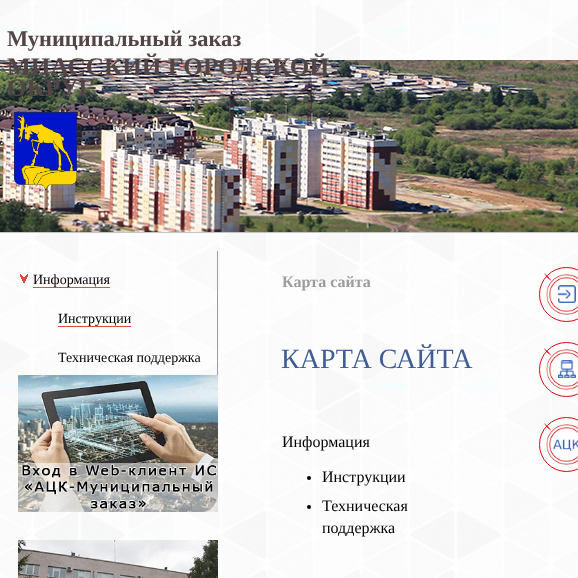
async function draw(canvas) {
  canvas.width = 578
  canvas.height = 578
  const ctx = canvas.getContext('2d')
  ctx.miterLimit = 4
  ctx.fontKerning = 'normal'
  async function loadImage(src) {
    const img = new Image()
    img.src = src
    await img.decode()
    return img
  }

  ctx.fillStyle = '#fff'
  ctx.fillRect(0, 0, 578, 578)
  ctx.drawImage(await loadImage('image0.png'), 0, 0, 578, 578)
  ctx.drawImage(await loadImage('image1.png'), 0, 60, 578, 172)
  ctx.fillStyle = '#c3c3c5'
  ctx.fillRect(0, 232, 578, 1)
  ctx.font = 'bold 22.4px Liberation Serif'
  ctx.fillStyle = '#534545'
  ctx.fillText('Муниципальный заказ', 7, 46)
  ctx.font = 'bold 25.25px Liberation Serif'
  ctx.fillText('МИАССКИЙ ГОРОДСКОЙ', 7, 75)
  ctx.fillText('ОКРУГ', 7, 96)
  ctx.drawImage(await loadImage('image2.png'), 14, 112, 63, 82)
  ctx.fillStyle = '#9c9ca1'
  ctx.fillRect(217, 251, 1, 124)
  ctx.drawImage(await loadImage('image3.png'), 20, 274, 8, 9)
  ctx.font = '14px Liberation Serif'
  ctx.fillStyle = '#000'
  ctx.fillText('Информация', 33, 284)
  ctx.fillStyle = '#e54941'
  ctx.fillRect(33, 287, 77, 1)
  ctx.fillStyle = '#000'
  ctx.fillText('Инструкции', 58, 323)
  ctx.fillStyle = '#e54941'
  ctx.fillRect(58, 326, 73, 1)
  ctx.fillStyle = '#000'
  ctx.fillText('Техническая поддержка', 58, 362)
  ctx.drawImage(await loadImage('image4.png'), 18, 375, 200, 137)
  ctx.drawImage(await loadImage('image5.png'), 18, 540, 200, 38)
  ctx.font = 'bold 16px Liberation Serif'
  ctx.fillStyle = '#9c9ca1'
  ctx.fillText('Карта сайта', 282, 287)
  ctx.font = '28px Liberation Serif'
  ctx.fillStyle = '#405d95'
  ctx.fillText('КАРТА САЙТА', 281, 368)
  ctx.font = '16px Liberation Serif'
  ctx.fillStyle = '#000'
  ctx.fillText('Информация', 282, 447)
  ctx.beginPath()
  ctx.arc(309, 478, 2, 0, 2 * Math.PI)
  ctx.fill()
  ctx.fillText('Инструкции', 322, 482)
  ctx.beginPath()
  ctx.arc(309, 507, 2, 0, 2 * Math.PI)
  ctx.fill()
  ctx.fillText('Техническая', 322, 511)
  ctx.fillText('поддержка', 322, 533)
  ctx.beginPath()
  ctx.arc(566.5, 294.5, 27, 0, 2 * Math.PI)
  ctx.strokeStyle = '#de0613'
  ctx.stroke()
  ctx.fillStyle = '#fff'
  ctx.beginPath()
  ctx.arc(566.5, 294.5, 25.5, 0, 2 * Math.PI)
  ctx.fill()
  ctx.drawImage(await loadImage('image6.png'), 546, 274, 32, 41)
  ctx.fillStyle = '#de0613'
  ctx.beginPath()
  ctx.moveTo(548, 276.5)
  ctx.lineTo(550.5, 279.5)
  ctx.bezierCurveTo(550.5, 279.5, 552, 281, 551, 280.5)
  ctx.bezierCurveTo(548.5, 279, 546, 276.5, 544.5, 274)
  ctx.bezierCurveTo(544, 273, 545.5, 274, 545.5, 274.5)
  ctx.closePath()
  ctx.fill()
  ctx.beginPath()
  ctx.arc(566.5, 369.5, 27, 0, 2 * Math.PI)
  ctx.stroke()
  ctx.fillStyle = '#fff'
  ctx.beginPath()
  ctx.arc(566.5, 369.5, 25.5, 0, 2 * Math.PI)
  ctx.fill()
  ctx.drawImage(await loadImage('image7.png'), 546, 349, 32, 41)
  ctx.fillStyle = '#de0613'
  ctx.beginPath()
  ctx.moveTo(548, 351.5)
  ctx.lineTo(550.5, 354.5)
  ctx.bezierCurveTo(550.5, 354.5, 552, 356, 551, 355.5)
  ctx.bezierCurveTo(548.5, 354, 546, 351.5, 544.5, 349)
  ctx.bezierCurveTo(544, 348, 545.5, 349, 545.5, 349.5)
  ctx.closePath()
  ctx.fill()
  ctx.beginPath()
  ctx.arc(566.5, 444.5, 27, 0, 2 * Math.PI)
  ctx.stroke()
  ctx.fillStyle = '#fff'
  ctx.beginPath()
  ctx.arc(566.5, 444.5, 25.5, 0, 2 * Math.PI)
  ctx.fill()
  ctx.drawImage(await loadImage('image8.png'), 546, 424, 32, 41)
  ctx.fillStyle = '#de0613'
  ctx.beginPath()
  ctx.moveTo(548, 426.5)
  ctx.lineTo(550.5, 429.5)
  ctx.bezierCurveTo(550.5, 429.5, 552, 431, 551, 430.5)
  ctx.bezierCurveTo(548.5, 429, 546, 426.5, 544.5, 424)
  ctx.bezierCurveTo(544, 423, 545.5, 424, 545.5, 424.5)
  ctx.closePath()
  ctx.fill()
}

draw(document.querySelector('canvas'))
